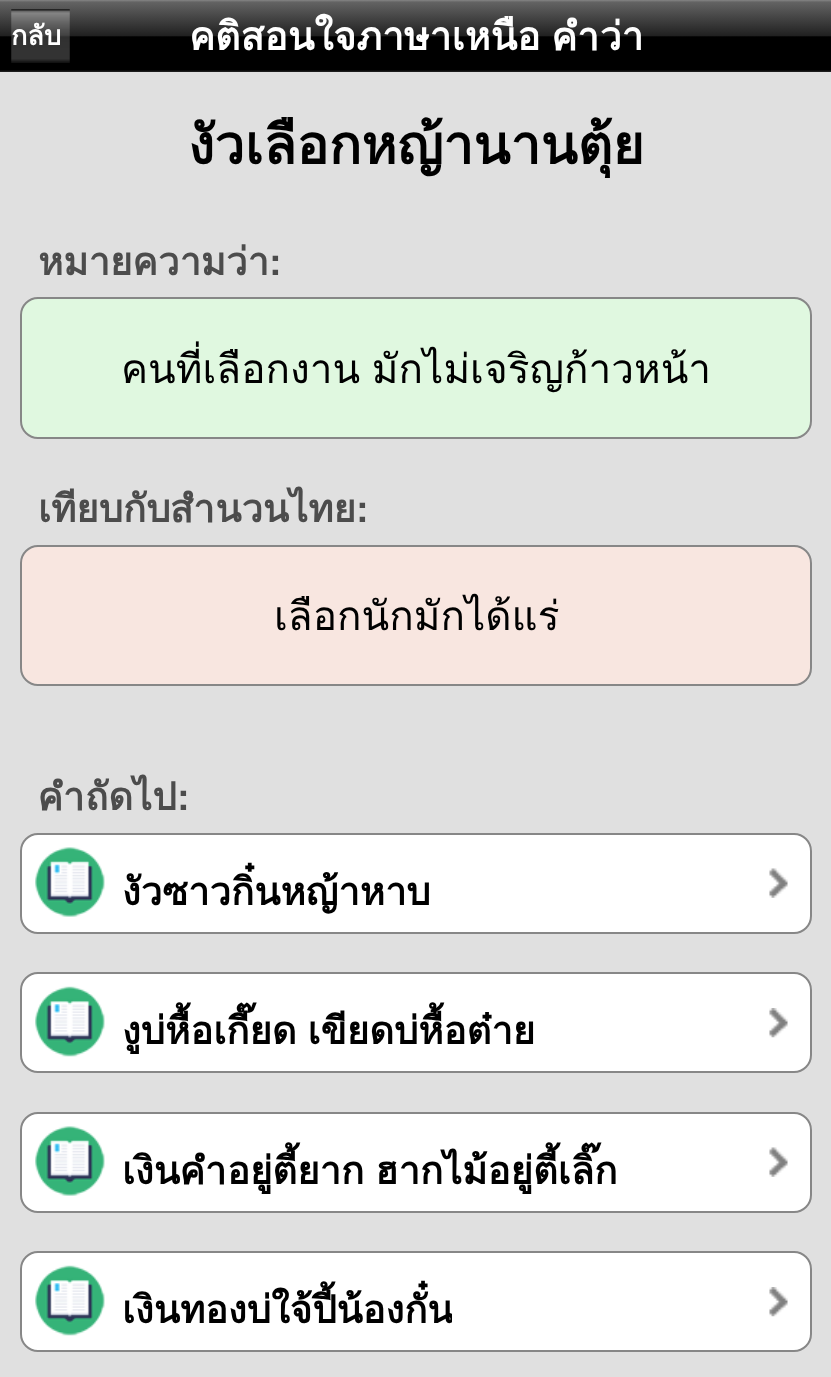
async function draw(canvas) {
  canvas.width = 831
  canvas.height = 1377
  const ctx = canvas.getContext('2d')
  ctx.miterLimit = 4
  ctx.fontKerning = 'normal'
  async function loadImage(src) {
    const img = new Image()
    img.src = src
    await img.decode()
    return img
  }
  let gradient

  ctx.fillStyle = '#e0e0e0'
  ctx.fillRect(0, 0, 831, 1377)
  gradient = ctx.createLinearGradient(0, 0, 0, 72)
  gradient.addColorStop(0, '#858585')
  gradient.addColorStop(0.03, '#636363')
  gradient.addColorStop(0.5, '#202020')
  gradient.addColorStop(0.51, '#000')
  gradient.addColorStop(0.97, '#000')
  gradient.addColorStop(1, '#262626')
  ctx.fillStyle = gradient
  ctx.fillRect(0, 0, 831, 72)
  ctx.drawImage(await loadImage('image0.png'), 11, 9, 59, 54)
  ctx.font = 'bold 27px Loma'
  ctx.fillStyle = '#fff'
  ctx.fillText('กลับ', 11, 45)
  ctx.wordSpacing = '-2px'
  ctx.font = 'bold 39px Loma'
  ctx.fillText('คติสอนใจภาษาเหนือ คำว่า', 189, 50)
  ctx.wordSpacing = '0px'
  ctx.font = 'bold 54px Loma'
  ctx.fillStyle = '#000'
  ctx.fillText('งัวเลือกหญ้านานตุ้ย', 188, 164)
  ctx.font = 'bold 38.25px Loma'
  ctx.fillStyle = '#4c4c4c'
  ctx.fillText('หมายความว่า', 38, 275)
  ctx.font = 'bold 38.25px Liberation Sans'
  ctx.fillText(':', 269, 275)
  ctx.fillStyle = '#e0f8e0'
  ctx.beginPath()
  ctx.roundRect(21, 298, 790, 140, 17)
  ctx.fill()
  ctx.strokeStyle = '#878787'
  ctx.lineWidth = 2
  ctx.stroke()
  ctx.wordSpacing = '-2px'
  ctx.font = '40.5px Loma'
  ctx.fillStyle = '#000'
  ctx.fillText('คนที่เลือกงาน มักไม่เจริญก้าวหน้า', 121, 383)
  ctx.wordSpacing = '0px'
  ctx.font = 'bold 38.25px Loma'
  ctx.fillStyle = '#4c4c4c'
  ctx.fillText('เทียบกับสำนวนไทย', 38, 522)
  ctx.font = 'bold 38.25px Liberation Sans'
  ctx.fillText(':', 356, 522)
  ctx.fillStyle = '#f8e6e0'
  ctx.beginPath()
  ctx.roundRect(21, 546, 790, 139, 17)
  ctx.fill()
  ctx.stroke()
  ctx.font = '40.5px Loma'
  ctx.fillStyle = '#000'
  ctx.fillText('เลือกนักมักได้แร่', 274, 630)
  ctx.font = 'bold 38.25px Loma'
  ctx.fillStyle = '#4c4c4c'
  ctx.fillText('คำถัดไป', 38, 810)
  ctx.font = 'bold 38.25px Liberation Sans'
  ctx.fillText(':', 177, 810)
  ctx.fillStyle = '#fff'
  ctx.beginPath()
  ctx.roundRect(21, 834, 790, 99, 17)
  ctx.fill()
  ctx.stroke()
  ctx.drawImage(await loadImage('image1.png'), 35, 847, 70, 70)
  ctx.save()
  ctx.beginPath()
  ctx.rect(122, 860, 308, 60)
  ctx.clip()
  ctx.font = 'bold 38.25px Loma'
  ctx.fillStyle = '#000'
  ctx.fillText('งัวซาวกิ๋นหญ้าหาบ', 122, 905)
  ctx.restore()
  ctx.drawImage(await loadImage('image2.png'), 769, 868, 19, 30)
  ctx.beginPath()
  ctx.roundRect(21, 973, 790, 99, 17)
  ctx.fill()
  ctx.stroke()
  ctx.drawImage(await loadImage('image3.png'), 35, 986, 70, 71)
  ctx.save()
  ctx.beginPath()
  ctx.rect(122, 999, 414, 61)
  ctx.clip()
  ctx.wordSpacing = '-2px'
  ctx.font = 'bold 38.25px Loma'
  ctx.fillStyle = '#000'
  ctx.fillText('งูบ่หื้อเกี๊ยด เขียดบ่หื้อต๋าย', 122, 1044)
  ctx.restore()
  ctx.drawImage(await loadImage('image4.png'), 769, 1008, 19, 30)
  ctx.beginPath()
  ctx.roundRect(21, 1113, 790, 99, 17)
  ctx.fill()
  ctx.stroke()
  ctx.drawImage(await loadImage('image1.png'), 35, 1126, 70, 70)
  ctx.save()
  ctx.beginPath()
  ctx.rect(122, 1139, 495, 60)
  ctx.clip()
  ctx.wordSpacing = '-2px'
  ctx.font = 'bold 38.25px Loma'
  ctx.fillStyle = '#000'
  ctx.fillText('เงินคำอยู่ตี้ยาก ฮากไม้อยู่ตี้เลิ๊ก', 122, 1184)
  ctx.restore()
  ctx.drawImage(await loadImage('image5.png'), 769, 1147, 19, 30)
  ctx.beginPath()
  ctx.roundRect(21, 1252, 790, 99, 17)
  ctx.fill()
  ctx.stroke()
  ctx.drawImage(await loadImage('image3.png'), 35, 1265, 70, 71)
  ctx.save()
  ctx.beginPath()
  ctx.rect(122, 1278, 330, 61)
  ctx.clip()
  ctx.font = 'bold 38.25px Loma'
  ctx.fillStyle = '#000'
  ctx.fillText('เงินทองบ่ใจ้ปี้น้องกั๋น', 122, 1323)
  ctx.restore()
  ctx.drawImage(await loadImage('image6.png'), 769, 1287, 19, 30)
}

draw(document.querySelector('canvas'))
